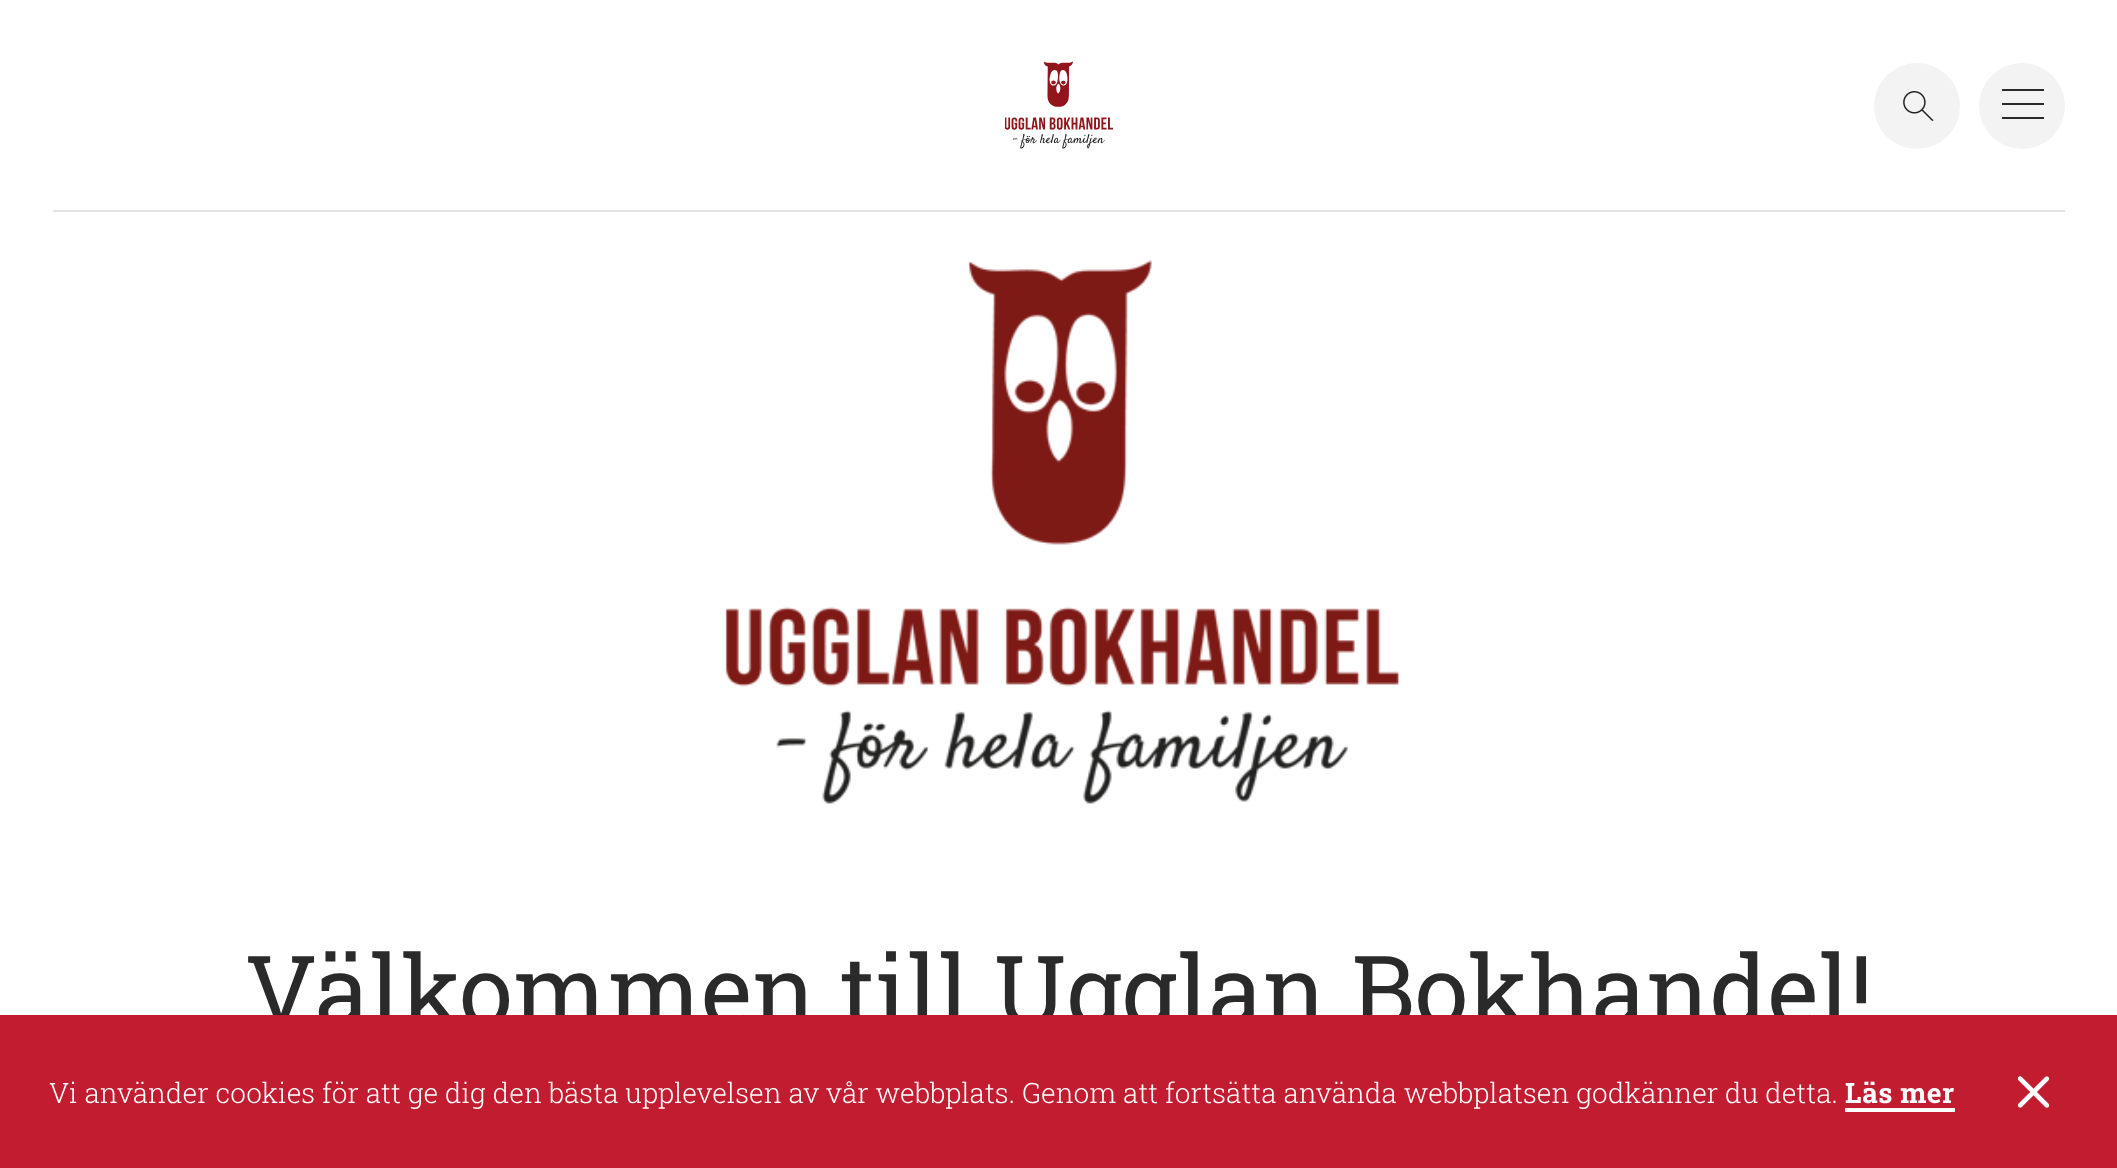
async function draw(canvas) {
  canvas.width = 2117
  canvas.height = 1168
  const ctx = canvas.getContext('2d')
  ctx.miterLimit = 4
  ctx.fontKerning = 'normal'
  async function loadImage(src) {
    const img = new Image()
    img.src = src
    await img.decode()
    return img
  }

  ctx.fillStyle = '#fff'
  ctx.fillRect(0, 0, 2117, 1168)
  ctx.drawImage(await loadImage('image0.png'), 1005, 61, 108, 88)
  ctx.fillStyle = '#f3f3f3'
  ctx.beginPath()
  ctx.arc(1917, 106, 43, 0, 2 * Math.PI)
  ctx.fill()
  ctx.drawImage(await loadImage('image1.png'), 1903, 91, 31, 30)
  ctx.beginPath()
  ctx.arc(2022, 106, 43, 0, 2 * Math.PI)
  ctx.fill()
  ctx.fillStyle = '#2a2a2a'
  ctx.fillRect(2002, 89, 42, 2)
  ctx.fillRect(2002, 103, 42, 2)
  ctx.fillRect(2002, 117, 42, 2)
  ctx.fillStyle = '#e3e3e3'
  ctx.fillRect(53, 210, 2012, 2)
  ctx.drawImage(await loadImage('image2.png'), 725, 260, 674, 544)
  ctx.font = '98px Roboto Slab'
  ctx.fillStyle = '#2a2a2a'
  ctx.fillText('Välkommen till Ugglan Bokhandel!', 245, 1026)
  ctx.fillStyle = '#c11c2f'
  ctx.fillRect(0, 1015, 2117, 153)
  ctx.font = '300 28px Roboto Slab'
  ctx.fillStyle = '#fff'
  ctx.fillText('Vi använder cookies för att ge dig den bästa upplevelsen av vår webbplats. Genom att fortsätta använda webbplatsen godkänner du detta.', 49, 1103)
  ctx.letterSpacing = '0.5px'
  ctx.font = 'bold 28px Roboto Slab'
  ctx.fillText('Läs mer', 1845, 1103)
  ctx.fillRect(1845, 1108, 110, 4)
  ctx.drawImage(await loadImage('image3.png'), 2018, 1076, 31, 32)
}

draw(document.querySelector('canvas'))
